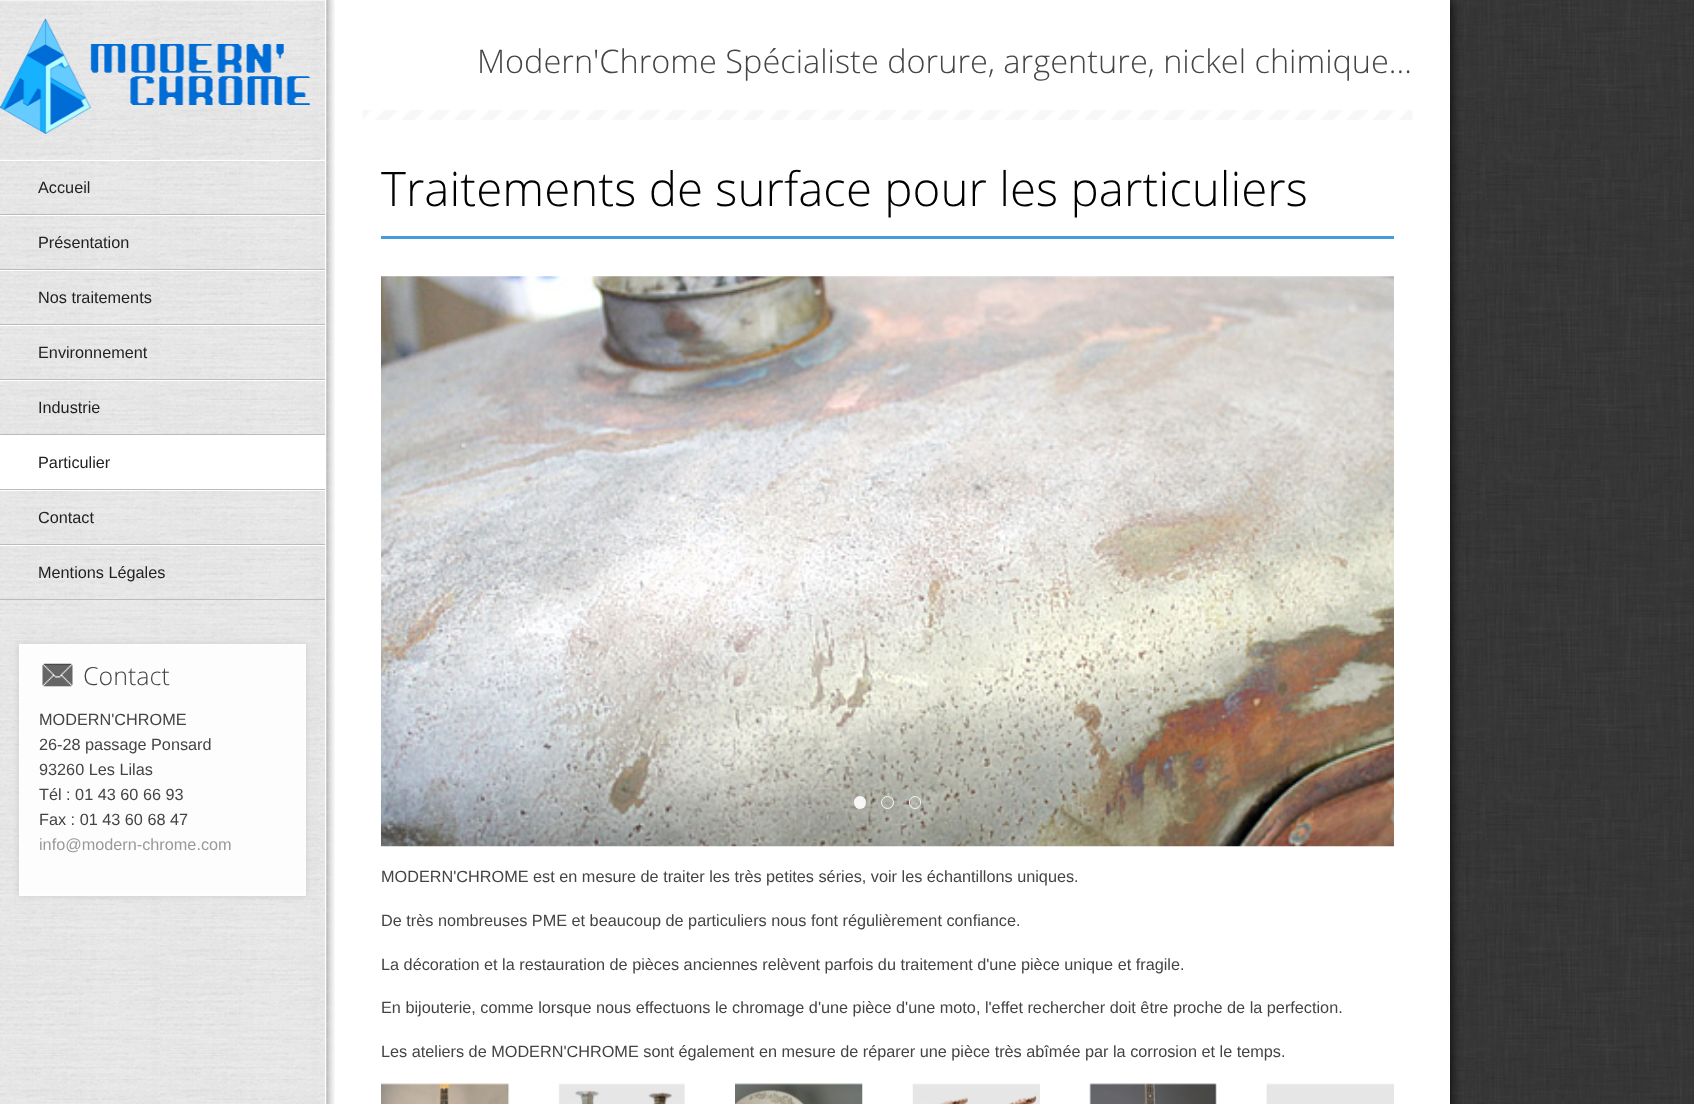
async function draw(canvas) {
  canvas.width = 1694
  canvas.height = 1104
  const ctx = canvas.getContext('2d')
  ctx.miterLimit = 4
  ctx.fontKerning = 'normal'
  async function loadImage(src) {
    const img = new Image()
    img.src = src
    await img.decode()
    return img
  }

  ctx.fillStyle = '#fff'
  ctx.fillRect(0, 0, 1694, 1104)
  ctx.drawImage(await loadImage('image0.png'), 1450, 0, 244, 1104)
  ctx.fillStyle = '#000'
  ctx.filter = 'blur(6px)'
  ctx.beginPath()
  ctx.rect(0, 0, 1450, 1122)
  ctx.fill()
  ctx.filter = 'none'
  ctx.fillStyle = '#fff'
  ctx.fillRect(325, 0, 1125, 1104)
  ctx.drawImage(await loadImage('image1.png'), 326, 0, 9, 1104)
  ctx.drawImage(await loadImage('image2.png'), 0, 1, 325, 1103)
  ctx.drawImage(await loadImage('image3.png'), 0, 18, 310, 116)
  ctx.fillStyle = '#f3f3f3'
  ctx.fillRect(0, 0, 325, 1)
  ctx.fillStyle = '#fff'
  ctx.fillRect(0, 160, 325, 1)
  ctx.fillStyle = '#bbb'
  ctx.fillRect(0, 214, 325, 1)
  ctx.font = '16.25px Liberation Sans'
  ctx.fillStyle = '#222'
  ctx.fillText('Accueil', 38, 193)
  ctx.fillStyle = '#fff'
  ctx.fillRect(0, 215, 325, 1)
  ctx.fillStyle = '#bbb'
  ctx.fillRect(0, 269, 325, 1)
  ctx.fillStyle = '#222'
  ctx.fillText('Présentation', 38, 248)
  ctx.fillStyle = '#fff'
  ctx.fillRect(0, 270, 325, 1)
  ctx.fillStyle = '#bbb'
  ctx.fillRect(0, 324, 325, 1)
  ctx.fillStyle = '#222'
  ctx.fillText('Nos traitements', 38, 303)
  ctx.fillStyle = '#fff'
  ctx.fillRect(0, 325, 325, 1)
  ctx.fillStyle = '#bbb'
  ctx.fillRect(0, 379, 325, 1)
  ctx.fillStyle = '#222'
  ctx.fillText('Environnement', 38, 358)
  ctx.fillStyle = '#fff'
  ctx.fillRect(0, 380, 325, 1)
  ctx.fillStyle = '#bbb'
  ctx.fillRect(0, 434, 325, 1)
  ctx.fillStyle = '#222'
  ctx.fillText('Industrie', 38, 413)
  ctx.fillStyle = '#fff'
  ctx.fillRect(0, 435, 325, 54)
  ctx.fillStyle = '#bbb'
  ctx.fillRect(0, 489, 325, 1)
  ctx.fillStyle = '#222'
  ctx.fillText('Particulier', 38, 468)
  ctx.fillStyle = '#fff'
  ctx.fillRect(0, 490, 325, 1)
  ctx.fillStyle = '#bbb'
  ctx.fillRect(0, 544, 325, 1)
  ctx.fillStyle = '#222'
  ctx.fillText('Contact', 38, 523)
  ctx.fillStyle = '#fff'
  ctx.fillRect(0, 545, 325, 1)
  ctx.fillStyle = '#bbb'
  ctx.fillRect(0, 599, 325, 1)
  ctx.fillStyle = '#222'
  ctx.fillText('Mentions Légales', 38, 578)
  ctx.fillStyle = '#cbcbcb'
  ctx.filter = 'blur(3px)'
  ctx.beginPath()
  ctx.rect(19, 644, 287, 252)
  ctx.fill()
  ctx.filter = 'none'
  ctx.fillStyle = '#fdfdfd'
  ctx.beginPath()
  ctx.rect(19.5, 644.5, 286, 251)
  ctx.fill()
  ctx.strokeStyle = '#fff'
  ctx.stroke()
  ctx.drawImage(await loadImage('image4.png'), 42, 663, 31, 24)
  ctx.font = '300 25px Open Sans'
  ctx.fillStyle = '#444'
  ctx.fillText('Contact', 83, 685)
  ctx.font = '16.25px Liberation Sans'
  ctx.fillText('MODERN\'CHROME', 39, 725)
  ctx.fillText('26-28 passage Ponsard', 39, 750)
  ctx.fillText('93260 Les Lilas', 39, 775)
  ctx.fillText('Tél : 01 43 60 66 93', 39, 800)
  ctx.fillText('Fax : 01 43 60 68 47', 39, 825)
  ctx.fillStyle = '#999'
  ctx.fillText('info@modern-chrome.com', 39, 850)
  ctx.drawImage(await loadImage('image5.png'), 362, 110, 1051, 10)
  ctx.font = '300 32.5px Open Sans'
  ctx.fillStyle = '#444'
  ctx.fillText('Modern\'Chrome Spécialiste dorure, argenture, nickel chimique...', 477, 73)
  ctx.fillStyle = '#469bdb'
  ctx.fillRect(381, 236, 1013, 3)
  ctx.font = '300 47.5px Open Sans'
  ctx.fillStyle = '#000'
  ctx.fillText('Traitements de surface pour les particuliers', 381, 206)
  ctx.drawImage(await loadImage('image6.png'), 381, 276, 1013, 571)
  ctx.fillStyle = '#ffffffe6'
  ctx.beginPath()
  ctx.roundRect(854, 796, 12, 13, 6)
  ctx.fill()
  ctx.beginPath()
  ctx.arc(887.5, 802.5, 6, 0, 2 * Math.PI)
  ctx.strokeStyle = '#ffffffe6'
  ctx.stroke()
  ctx.beginPath()
  ctx.roundRect(909.5, 796.5, 11, 12, 5.5)
  ctx.stroke()
  ctx.font = '16.25px Liberation Sans'
  ctx.fillStyle = '#444'
  ctx.fillText('MODERN\'CHROME est en mesure de traiter les très petites séries, voir les échantillons uniques.', 381, 882)
  ctx.fillText('De très nombreuses PME et beaucoup de particuliers nous font régulièrement confiance.', 381, 926)
  ctx.fillText('La décoration et la restauration de pièces anciennes relèvent parfois du traitement d\'une pièce unique et fragile.', 381, 970)
  ctx.fillText('En bijouterie, comme lorsque nous effectuons le chromage d\'une pièce d\'une moto, l\'effet rechercher doit être proche de la perfection.', 381, 1013)
  ctx.fillText('Les ateliers de MODERN\'CHROME sont également en mesure de réparer une pièce très abîmée par la corrosion et le temps.', 381, 1057)
  ctx.drawImage(await loadImage('image7.png'), 381, 1083, 129, 21)
  ctx.drawImage(await loadImage('image8.png'), 558, 1083, 127, 21)
  ctx.drawImage(await loadImage('image9.png'), 735, 1083, 128, 21)
  ctx.drawImage(await loadImage('image10.png'), 912, 1083, 128, 21)
  ctx.drawImage(await loadImage('image11.png'), 1089, 1083, 128, 21)
  ctx.drawImage(await loadImage('image12.png'), 1266, 1083, 128, 21)
}

draw(document.querySelector('canvas'))
